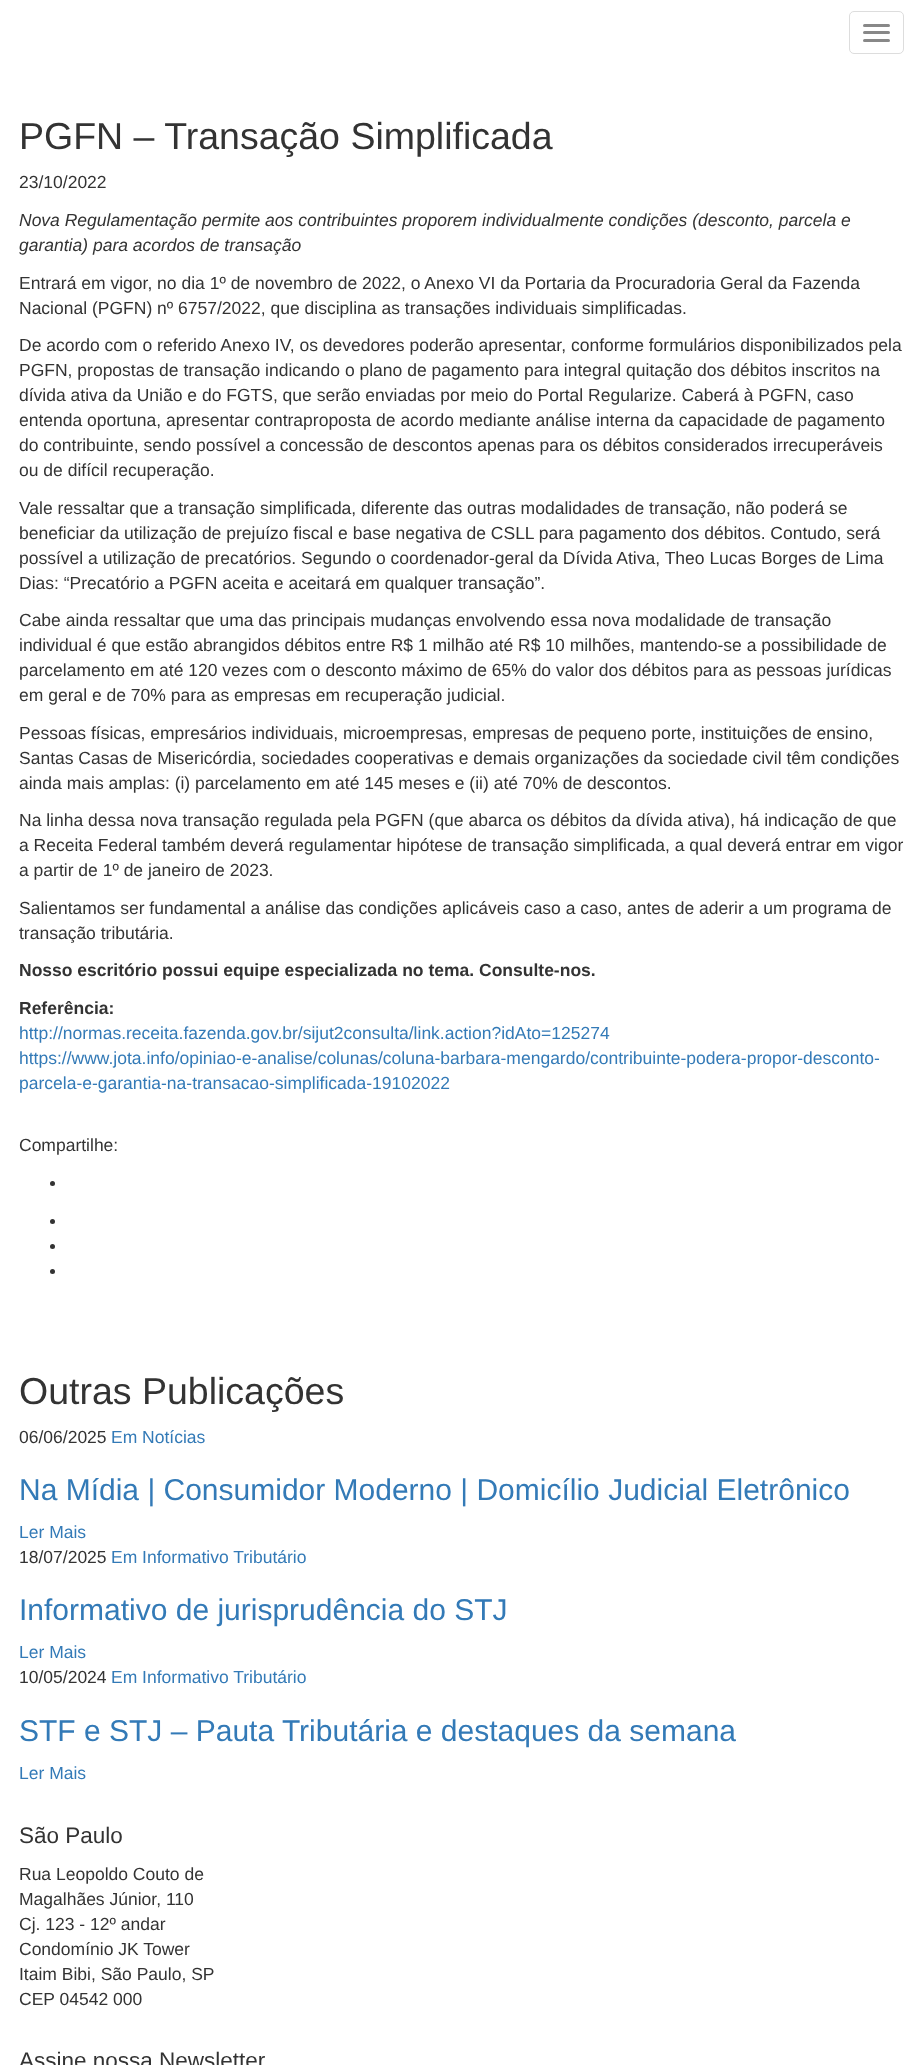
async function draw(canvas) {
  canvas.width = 923
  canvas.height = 2065
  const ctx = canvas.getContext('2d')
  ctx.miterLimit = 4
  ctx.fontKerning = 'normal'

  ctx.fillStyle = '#fff'
  ctx.fillRect(0, 0, 923, 2065)
  ctx.beginPath()
  ctx.roundRect(849.5, 11.5, 54, 42, 4.5)
  ctx.strokeStyle = '#ddd'
  ctx.stroke()
  ctx.fillStyle = '#888'
  ctx.beginPath()
  ctx.roundRect(863, 24, 27, 3, 1.5)
  ctx.fill()
  ctx.beginPath()
  ctx.roundRect(863, 31, 27, 3, 1.5)
  ctx.fill()
  ctx.beginPath()
  ctx.roundRect(863, 39, 27, 3, 1.5)
  ctx.fill()
  ctx.font = '37.5px Liberation Sans'
  ctx.fillStyle = '#333'
  ctx.fillText('PGFN – Transação Simplificada', 19, 149)
  ctx.font = '17.5px Liberation Sans'
  ctx.fillText('23/10/2022', 19, 188)
  ctx.font = 'italic 17.5px Liberation Sans'
  ctx.fillText('Nova Regulamentação permite aos contribuintes proporem individualmente condições (desconto, parcela e', 19, 226)
  ctx.fillText('garantia) para acordos de transação', 19, 251)
  ctx.font = '17.5px Liberation Sans'
  ctx.fillText('Entrará em vigor, no dia 1º de novembro de 2022, o Anexo VI da Portaria da Procuradoria Geral da Fazenda', 19, 289)
  ctx.fillText('Nacional (PGFN) nº 6757/2022, que disciplina as transações individuais simplificadas.', 19, 314)
  ctx.fillText('De acordo com o referido Anexo IV, os devedores poderão apresentar, conforme formulários disponibilizados pela', 19, 351)
  ctx.fillText('PGFN, propostas de transação indicando o plano de pagamento para integral quitação dos débitos inscritos na', 19, 376)
  ctx.fillText('dívida ativa da União e do FGTS, que serão enviadas por meio do Portal Regularize. Caberá à PGFN, caso', 19, 401)
  ctx.fillText('entenda oportuna, apresentar contraproposta de acordo mediante análise interna da capacidade de pagamento', 19, 426)
  ctx.fillText('do contribuinte, sendo possível a concessão de descontos apenas para os débitos considerados irrecuperáveis', 19, 451)
  ctx.fillText('ou de difícil recuperação.', 19, 476)
  ctx.fillText('Vale ressaltar que a transação simplificada, diferente das outras modalidades de transação, não poderá se', 19, 514)
  ctx.fillText('beneficiar da utilização de prejuízo fiscal e base negativa de CSLL para pagamento dos débitos. Contudo, será', 19, 539)
  ctx.fillText('possível a utilização de precatórios. Segundo o coordenador-geral da Dívida Ativa, Theo Lucas Borges de Lima', 19, 564)
  ctx.fillText('Dias: “Precatório a PGFN aceita e aceitará em qualquer transação”.', 19, 589)
  ctx.fillText('Cabe ainda ressaltar que uma das principais mudanças envolvendo essa nova modalidade de transação', 19, 626)
  ctx.fillText('individual é que estão abrangidos débitos entre R$ 1 milhão até R$ 10 milhões, mantendo-se a possibilidade de', 19, 651)
  ctx.fillText('parcelamento em até 120 vezes com o desconto máximo de 65% do valor dos débitos para as pessoas jurídicas', 19, 676)
  ctx.fillText('em geral e de 70% para as empresas em recuperação judicial.', 19, 701)
  ctx.fillText('Pessoas físicas, empresários individuais, microempresas, empresas de pequeno porte, instituições de ensino,', 19, 739)
  ctx.fillText('Santas Casas de Misericórdia, sociedades cooperativas e demais organizações da sociedade civil têm condições', 19, 764)
  ctx.fillText('ainda mais amplas: (i) parcelamento em até 145 meses e (ii) até 70% de descontos.', 19, 789)
  ctx.fillText('Na linha dessa nova transação regulada pela PGFN (que abarca os débitos da dívida ativa), há indicação de que', 19, 826)
  ctx.fillText('a Receita Federal também deverá regulamentar hipótese de transação simplificada, a qual deverá entrar em vigor', 19, 851)
  ctx.fillText('a partir de 1º de janeiro de 2023.', 19, 876)
  ctx.fillText('Salientamos ser fundamental a análise das condições aplicáveis caso a caso, antes de aderir a um programa de', 19, 914)
  ctx.fillText('transação tributária.', 19, 939)
  ctx.font = 'bold 17.5px Liberation Sans'
  ctx.fillText('Nosso escritório possui equipe especializada no tema. Consulte-nos.', 19, 976)
  ctx.fillText('Referência:', 19, 1014)
  ctx.font = '17.5px Liberation Sans'
  ctx.fillStyle = '#337ab7'
  ctx.fillText('http://normas.receita.fazenda.gov.br/sijut2consulta/link.action?idAto=125274', 19, 1039)
  ctx.fillText('https://www.jota.info/opiniao-e-analise/colunas/coluna-barbara-mengardo/contribuinte-podera-propor-desconto-', 19, 1064)
  ctx.fillText('parcela-e-garantia-na-transacao-simplificada-19102022', 19, 1089)
  ctx.fillStyle = '#333'
  ctx.fillText('Compartilhe:', 19, 1151)
  ctx.beginPath()
  ctx.arc(52.5, 1183.5, 2.5, 0, 2 * Math.PI)
  ctx.fill()
  ctx.beginPath()
  ctx.arc(52.5, 1221.5, 2.5, 0, 2 * Math.PI)
  ctx.fill()
  ctx.beginPath()
  ctx.arc(52.5, 1246.5, 2.5, 0, 2 * Math.PI)
  ctx.fill()
  ctx.beginPath()
  ctx.arc(52.5, 1271.5, 2.5, 0, 2 * Math.PI)
  ctx.fill()
  ctx.font = '37.5px Liberation Sans'
  ctx.fillText('Outras Publicações', 19, 1404)
  ctx.font = '17.5px Liberation Sans'
  ctx.fillText('06/06/2025', 19, 1443)
  ctx.fillStyle = '#337ab7'
  ctx.fillText('Em Notícias', 111, 1443)
  ctx.font = '30px Liberation Sans'
  ctx.fillText('Na Mídia | Consumidor Moderno | Domicílio Judicial Eletrônico', 19, 1500)
  ctx.font = '17.5px Liberation Sans'
  ctx.fillText('Ler Mais', 19, 1538)
  ctx.fillStyle = '#333'
  ctx.fillText('18/07/2025', 19, 1563)
  ctx.fillStyle = '#337ab7'
  ctx.fillText('Em Informativo Tributário', 111, 1563)
  ctx.font = '30px Liberation Sans'
  ctx.fillText('Informativo de jurisprudência do STJ', 19, 1620)
  ctx.font = '17.5px Liberation Sans'
  ctx.fillText('Ler Mais', 19, 1658)
  ctx.fillStyle = '#333'
  ctx.fillText('10/05/2024', 19, 1683)
  ctx.fillStyle = '#337ab7'
  ctx.fillText('Em Informativo Tributário', 111, 1683)
  ctx.font = '30px Liberation Sans'
  ctx.fillText('STF e STJ – Pauta Tributária e destaques da semana', 19, 1741)
  ctx.font = '17.5px Liberation Sans'
  ctx.fillText('Ler Mais', 19, 1779)
  ctx.font = '22.5px Liberation Sans'
  ctx.fillStyle = '#333'
  ctx.fillText('São Paulo', 19, 1843)
  ctx.font = '17.5px Liberation Sans'
  ctx.fillText('Rua Leopoldo Couto de', 19, 1880)
  ctx.fillText('Magalhães Júnior, 110', 19, 1905)
  ctx.fillText('Cj. 123 - 12º andar', 19, 1930)
  ctx.fillText('Condomínio JK Tower', 19, 1955)
  ctx.fillText('Itaim Bibi, São Paulo, SP', 19, 1980)
  ctx.fillText('CEP 04542 000', 19, 2005)
  ctx.font = '22.5px Liberation Sans'
  ctx.fillText('Assine nossa Newsletter', 19, 2068)
}

draw(document.querySelector('canvas'))
